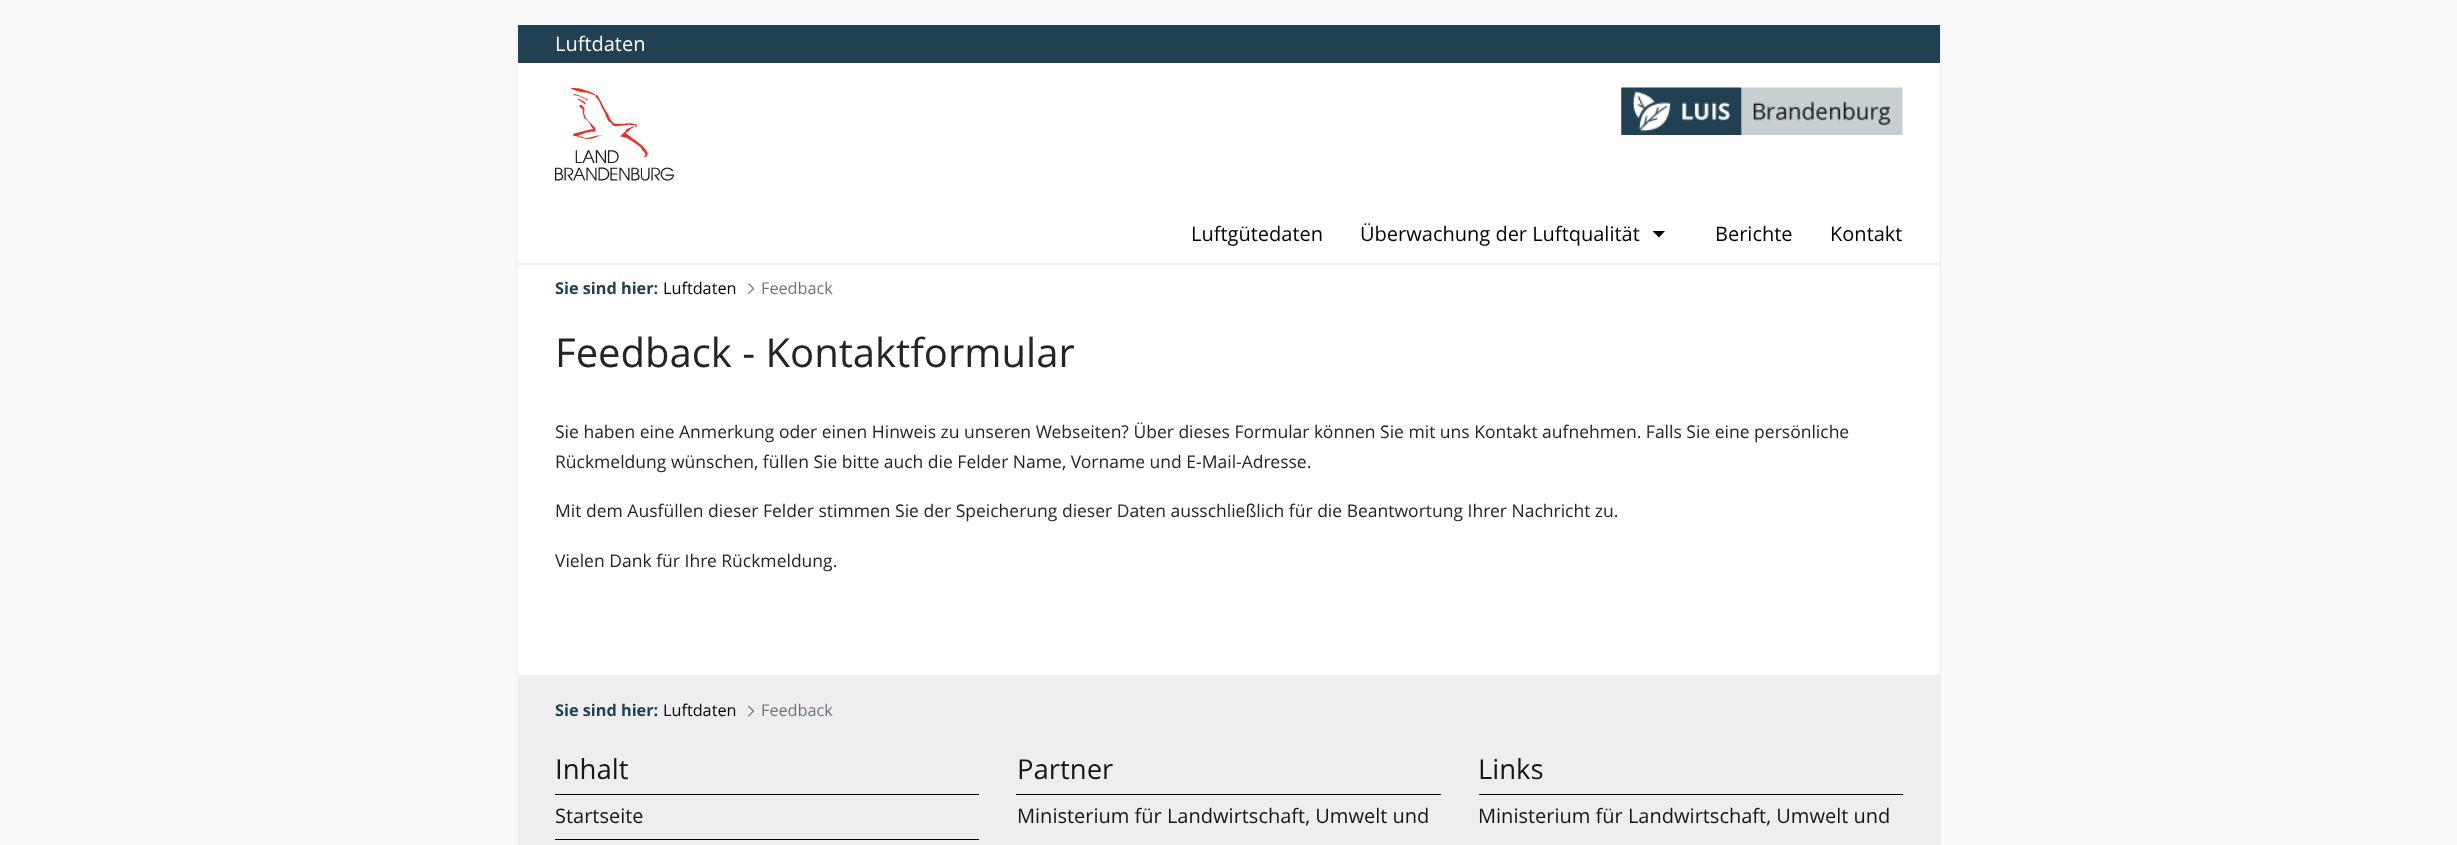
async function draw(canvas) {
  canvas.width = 2457
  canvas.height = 845
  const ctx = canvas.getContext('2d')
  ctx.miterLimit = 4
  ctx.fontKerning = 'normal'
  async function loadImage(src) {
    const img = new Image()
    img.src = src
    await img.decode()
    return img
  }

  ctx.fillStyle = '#fafafa'
  ctx.fillRect(0, 0, 2457, 845)
  ctx.fillStyle = '#fff'
  ctx.fillRect(517, 25, 1423, 820)
  ctx.fillStyle = '#eee'
  ctx.fillRect(1940, 25, 1, 820)
  ctx.fillRect(516, 25, 1, 820)
  ctx.fillStyle = '#214152'
  ctx.fillRect(518, 25, 1422, 38)
  ctx.font = '20px Open Sans'
  ctx.fillStyle = '#fff'
  ctx.fillText('Luftdaten', 555, 51)
  ctx.drawImage(await loadImage('image0.png'), 555, 88, 120, 93)
  ctx.drawImage(await loadImage('image1.png'), 1621, 87, 282, 48)
  ctx.fillStyle = '#000'
  ctx.fillText('Luftgütedaten', 1191, 241)
  ctx.fillText('Überwachung der Luftqualität', 1360, 241)
  ctx.beginPath()
  ctx.moveTo(1652.5, 231)
  ctx.lineTo(1665, 231)
  ctx.lineTo(1659, 237.5)
  ctx.closePath()
  ctx.fill()
  ctx.fillText('Berichte', 1715, 241)
  ctx.fillText('Kontakt', 1830, 241)
  ctx.fillStyle = '#eee'
  ctx.fillRect(518, 263, 1422, 2)
  ctx.font = 'bold 16.25px Open Sans'
  ctx.fillStyle = '#214152'
  ctx.fillText('Sie sind hier:', 555, 294)
  ctx.font = '16.25px Open Sans'
  ctx.fillStyle = '#000'
  ctx.fillText('Luftdaten', 663, 294)
  ctx.drawImage(await loadImage('image2.png'), 748, 283, 6, 11)
  ctx.fillStyle = '#6c757d'
  ctx.fillText('Feedback', 761, 294)
  ctx.font = '40px Open Sans'
  ctx.fillStyle = '#212529'
  ctx.fillText('Feedback - Kontaktformular', 555, 367)
  ctx.font = '17.5px Open Sans'
  ctx.fillText('Sie haben eine Anmerkung oder einen Hinweis zu unseren Webseiten? Über dieses Formular können Sie mit uns Kontakt aufnehmen. Falls Sie eine persönliche', 555, 438)
  ctx.fillText('Rückmeldung wünschen, füllen Sie bitte auch die Felder Name, Vorname und E-Mail-Adresse.', 555, 468)
  ctx.fillText('Mit dem Ausfüllen dieser Felder stimmen Sie der Speicherung dieser Daten ausschließlich für die Beantwortung Ihrer Nachricht zu.', 555, 517)
  ctx.fillText('Vielen Dank für Ihre Rückmeldung.', 555, 567)
  ctx.fillStyle = '#eee'
  ctx.fillRect(518, 675, 1422, 170)
  ctx.font = 'bold 16.25px Open Sans'
  ctx.fillStyle = '#214152'
  ctx.fillText('Sie sind hier:', 555, 716)
  ctx.font = '16.25px Open Sans'
  ctx.fillStyle = '#000'
  ctx.fillText('Luftdaten', 663, 716)
  ctx.drawImage(await loadImage('image3.png'), 748, 705, 6, 12)
  ctx.fillStyle = '#6c757d'
  ctx.fillText('Feedback', 761, 716)
  ctx.font = '27.5px Open Sans'
  ctx.fillStyle = '#161616'
  ctx.fillText('Inhalt', 555, 779)
  ctx.fillStyle = '#000'
  ctx.fillRect(555, 794, 424, 1)
  ctx.font = '20px Open Sans'
  ctx.fillStyle = '#161616'
  ctx.fillText('Startseite', 555, 823)
  ctx.fillStyle = '#000'
  ctx.fillRect(555, 839, 424, 1)
  ctx.font = '27.5px Open Sans'
  ctx.fillStyle = '#161616'
  ctx.fillText('Partner', 1017, 779)
  ctx.fillStyle = '#000'
  ctx.fillRect(1016, 794, 425, 1)
  ctx.font = '20px Open Sans'
  ctx.fillStyle = '#161616'
  ctx.fillText('Ministerium für Landwirtschaft, Umwelt und', 1017, 823)
  ctx.font = '27.5px Open Sans'
  ctx.fillText('Links', 1478, 779)
  ctx.fillStyle = '#000'
  ctx.fillRect(1479, 794, 424, 1)
  ctx.font = '20px Open Sans'
  ctx.fillStyle = '#161616'
  ctx.fillText('Ministerium für Landwirtschaft, Umwelt und', 1478, 823)
}

draw(document.querySelector('canvas'))
